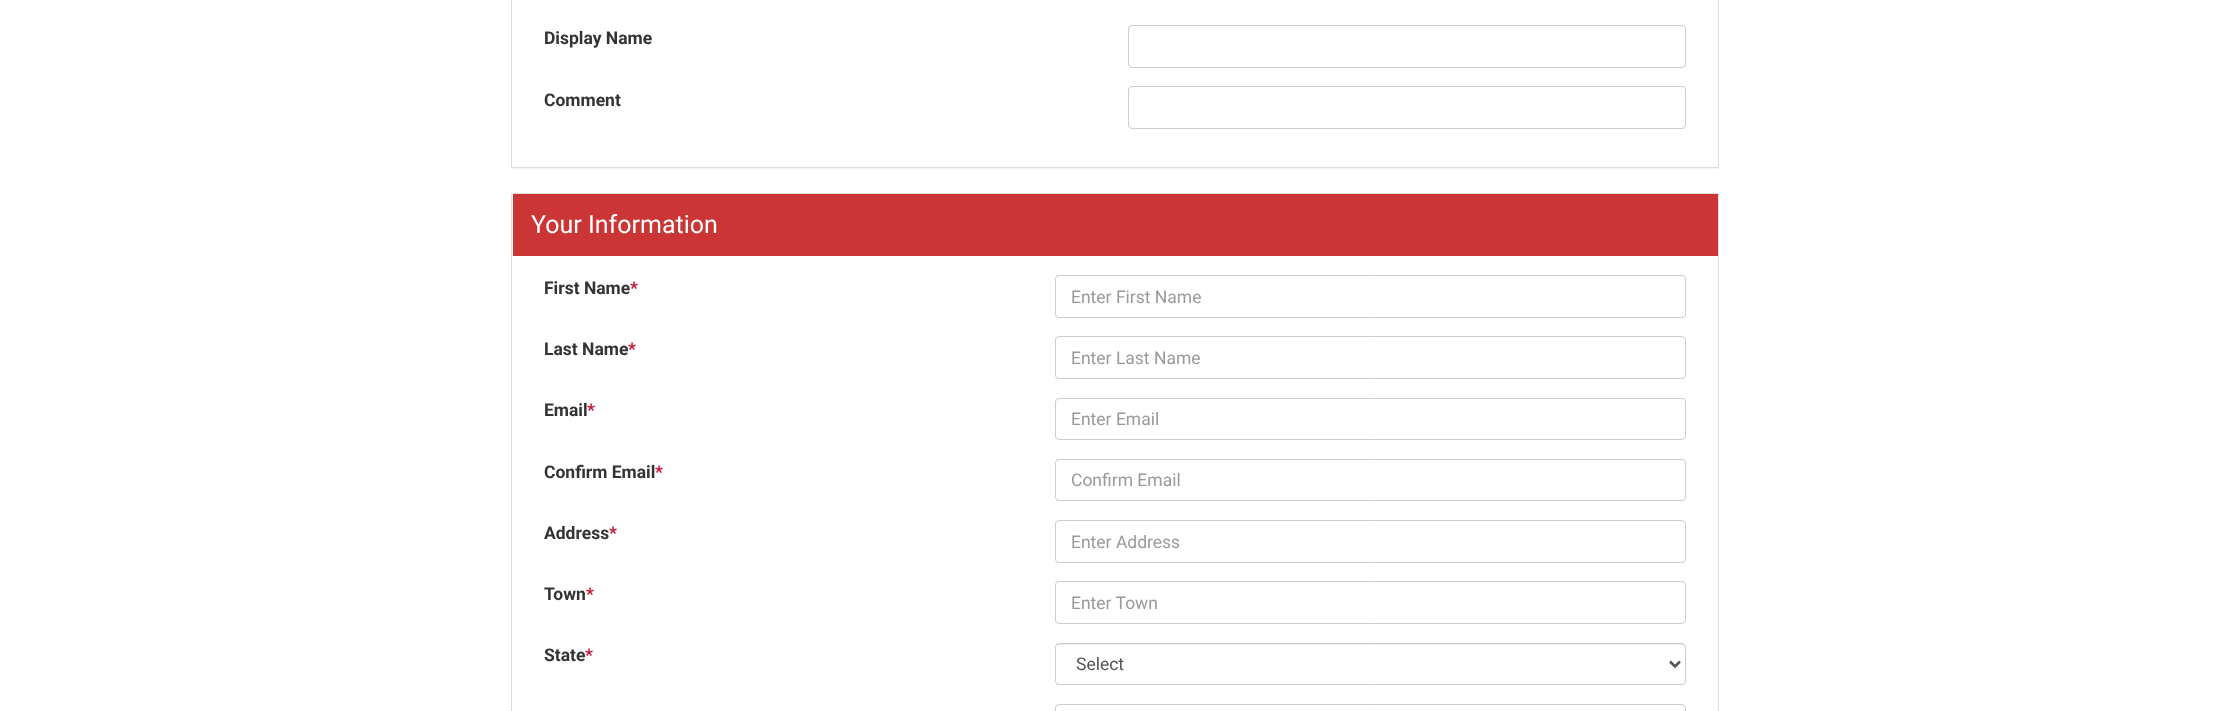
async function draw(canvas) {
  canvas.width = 2230
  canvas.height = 711
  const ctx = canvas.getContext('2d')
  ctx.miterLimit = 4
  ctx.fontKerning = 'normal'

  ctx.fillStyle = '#fff'
  ctx.fillRect(0, 0, 2230, 711)
  ctx.fillStyle = '#0000000d'
  ctx.filter = 'blur(0.5px)'
  ctx.beginPath()
  ctx.rect(511, -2, 1208, 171)
  ctx.fill()
  ctx.filter = 'none'
  ctx.fillStyle = '#fff'
  ctx.beginPath()
  ctx.rect(511.5, -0.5, 1207, 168)
  ctx.fill()
  ctx.strokeStyle = '#ddd'
  ctx.stroke()
  ctx.font = 'bold 17.5px Roboto'
  ctx.fillStyle = '#333'
  ctx.fillText('Display Name', 544, 44)
  ctx.beginPath()
  ctx.roundRect(1128.5, 25.5, 557, 42, 3.5)
  ctx.strokeStyle = '#ccc'
  ctx.stroke()
  ctx.fillText('Comment', 544, 106)
  ctx.beginPath()
  ctx.roundRect(1128.5, 86.5, 557, 42, 3.5)
  ctx.stroke()
  ctx.strokeStyle = '#ddd'
  ctx.strokeRect(511.5, 193.5, 1207, 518)
  ctx.fillStyle = '#cc3535'
  ctx.fillRect(513, 194, 1205, 62)
  ctx.font = '25px Roboto'
  ctx.fillStyle = '#fff'
  ctx.fillText('Your Information', 531, 233)
  ctx.font = 'bold 17.5px Roboto'
  ctx.fillStyle = '#333'
  ctx.fillText('First Name', 544, 294)
  ctx.fillStyle = '#c51230'
  ctx.fillText('*', 630, 294)
  ctx.beginPath()
  ctx.roundRect(1055.5, 275.5, 630, 42, 3.5)
  ctx.strokeStyle = '#ccc'
  ctx.stroke()
  ctx.font = '17.5px Roboto'
  ctx.fillStyle = '#999'
  ctx.fillText('Enter First Name', 1071, 303)
  ctx.font = 'bold 17.5px Roboto'
  ctx.fillStyle = '#333'
  ctx.fillText('Last Name', 544, 355)
  ctx.fillStyle = '#c51230'
  ctx.fillText('*', 628, 355)
  ctx.beginPath()
  ctx.roundRect(1055.5, 336.5, 630, 42, 3.5)
  ctx.stroke()
  ctx.font = '17.5px Roboto'
  ctx.fillStyle = '#999'
  ctx.fillText('Enter Last Name', 1071, 364)
  ctx.font = 'bold 17.5px Roboto'
  ctx.fillStyle = '#333'
  ctx.fillText('Email', 544, 416)
  ctx.fillStyle = '#c51230'
  ctx.fillText('*', 587, 416)
  ctx.beginPath()
  ctx.roundRect(1055.5, 398.5, 630, 41, 3.5)
  ctx.stroke()
  ctx.font = '17.5px Roboto'
  ctx.fillStyle = '#999'
  ctx.fillText('Enter Email', 1071, 425)
  ctx.font = 'bold 17.5px Roboto'
  ctx.fillStyle = '#333'
  ctx.fillText('Confirm Email', 544, 478)
  ctx.fillStyle = '#c51230'
  ctx.fillText('*', 655, 478)
  ctx.beginPath()
  ctx.roundRect(1055.5, 459.5, 630, 41, 3.5)
  ctx.stroke()
  ctx.font = '17.5px Roboto'
  ctx.fillStyle = '#999'
  ctx.fillText('Confirm Email', 1071, 486)
  ctx.font = 'bold 17.5px Roboto'
  ctx.fillStyle = '#333'
  ctx.fillText('Address', 544, 539)
  ctx.fillStyle = '#c51230'
  ctx.fillText('*', 609, 539)
  ctx.beginPath()
  ctx.roundRect(1055.5, 520.5, 630, 42, 3.5)
  ctx.stroke()
  ctx.font = '17.5px Roboto'
  ctx.fillStyle = '#999'
  ctx.fillText('Enter Address', 1071, 548)
  ctx.font = 'bold 17.5px Roboto'
  ctx.fillStyle = '#333'
  ctx.fillText('Town', 544, 600)
  ctx.fillStyle = '#c51230'
  ctx.fillText('*', 586, 600)
  ctx.beginPath()
  ctx.roundRect(1055.5, 581.5, 630, 42, 3.5)
  ctx.stroke()
  ctx.font = '17.5px Roboto'
  ctx.fillStyle = '#999'
  ctx.fillText('Enter Town', 1071, 609)
  ctx.font = 'bold 17.5px Roboto'
  ctx.fillStyle = '#333'
  ctx.fillText('State', 544, 661)
  ctx.fillStyle = '#c51230'
  ctx.fillText('*', 585, 661)
  ctx.fillStyle = '#ececec'
  ctx.beginPath()
  ctx.moveTo(1059, 645)
  ctx.lineTo(1682, 645)
  ctx.bezierCurveTo(1684, 645, 1685, 646, 1685, 648)
  ctx.lineTo(1685, 646)
  ctx.bezierCurveTo(1685, 645, 1684, 644, 1682, 644)
  ctx.lineTo(1058, 644)
  ctx.bezierCurveTo(1057, 644, 1056, 645, 1056, 646)
  ctx.lineTo(1056, 648)
  ctx.bezierCurveTo(1056, 646, 1057, 645, 1059, 645)
  ctx.closePath()
  ctx.fill()
  ctx.beginPath()
  ctx.roundRect(1055.5, 643.5, 630, 41, 3.5)
  ctx.stroke()
  ctx.beginPath()
  ctx.moveTo(1670, 661.5)
  ctx.lineTo(1675, 666.5)
  ctx.lineTo(1680, 661.5)
  ctx.strokeStyle = '#555'
  ctx.lineWidth = 2.5
  ctx.stroke()
  ctx.font = '17.5px Roboto'
  ctx.fillStyle = '#555'
  ctx.fillText('Select', 1076, 670)
  ctx.beginPath()
  ctx.roundRect(1055.5, 704.5, 630, 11, 3.5)
  ctx.strokeStyle = '#ccc'
  ctx.lineWidth = 1
  ctx.stroke()
}

draw(document.querySelector('canvas'))
